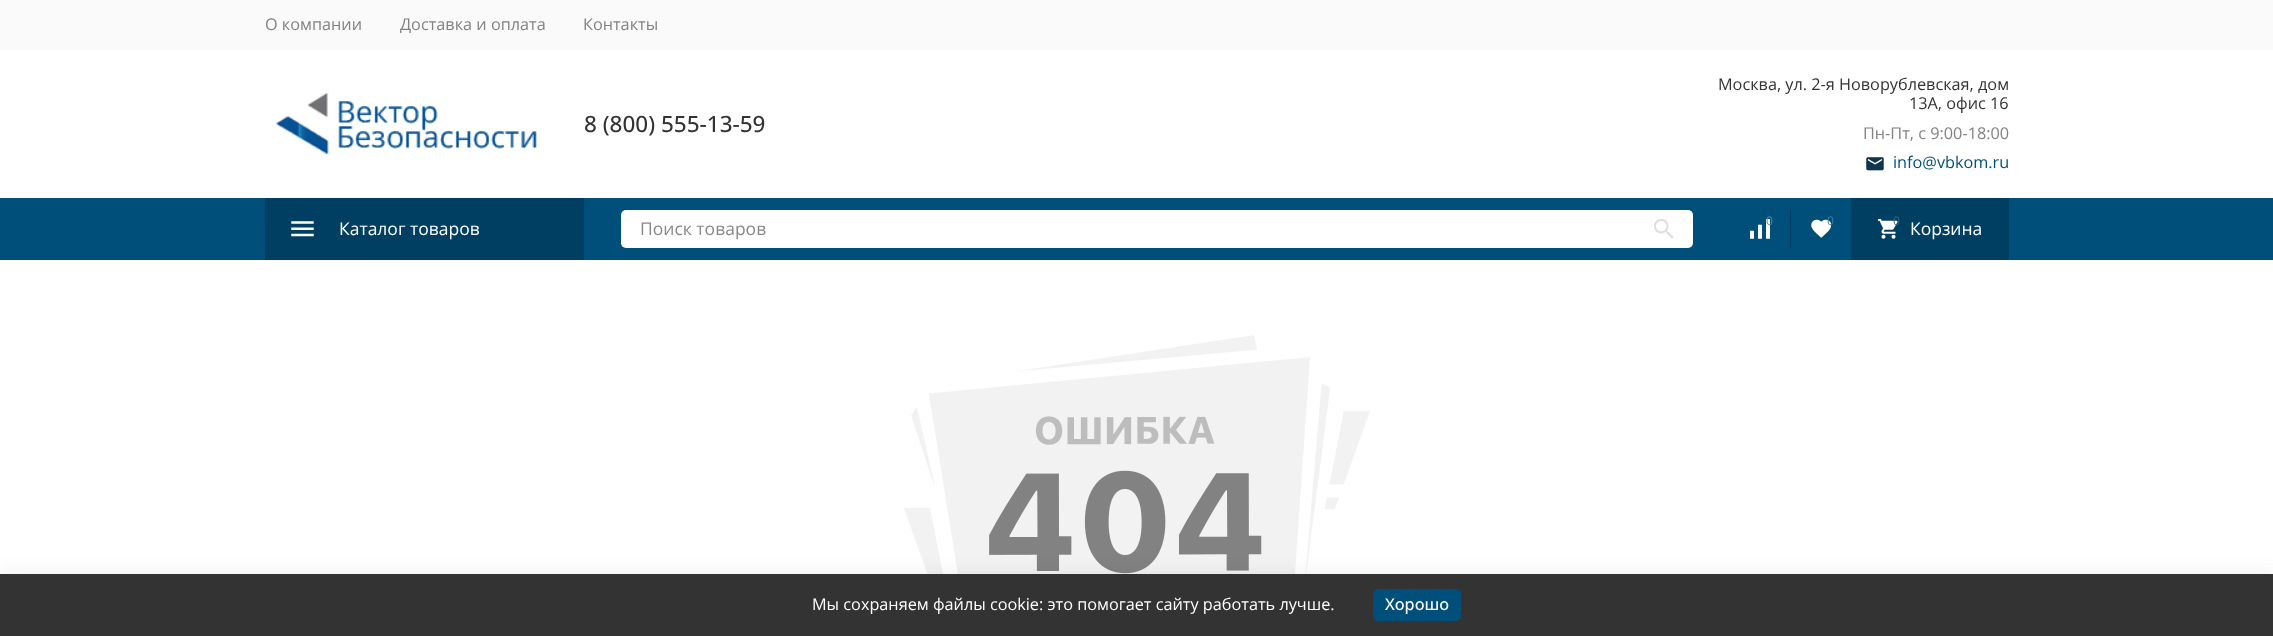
async function draw(canvas) {
  canvas.width = 2273
  canvas.height = 636
  const ctx = canvas.getContext('2d')
  ctx.miterLimit = 4
  ctx.fontKerning = 'normal'
  async function loadImage(src) {
    const img = new Image()
    img.src = src
    await img.decode()
    return img
  }

  ctx.fillStyle = '#fff'
  ctx.fillRect(0, 0, 2273, 636)
  ctx.fillStyle = '#fafafa'
  ctx.fillRect(0, 0, 2273, 50)
  ctx.font = '16.25px Open Sans'
  ctx.fillStyle = '#828282'
  ctx.fillText('О компании', 265, 30)
  ctx.fillText('Доставка и оплата', 400, 30)
  ctx.fillText('Контакты', 583, 30)
  ctx.drawImage(await loadImage('image0.png'), 275, 92, 262, 63)
  ctx.font = '500 22.5px Open Sans'
  ctx.fillStyle = '#333'
  ctx.fillText('8 (800) 555-13-59', 584, 132)
  ctx.font = '16.25px Open Sans'
  ctx.fillText('Москва, ул. 2-я Новорублевская, дом', 1718, 90)
  ctx.fillText('13А, офис 16', 1909, 109)
  ctx.fillStyle = '#828282'
  ctx.fillText('Пн-Пт, с 9:00-18:00', 1863, 139)
  ctx.drawImage(await loadImage('image1.png'), 1866, 157, 18, 14)
  ctx.fillStyle = '#004f7a'
  ctx.fillText('info@vbkom.ru', 1893, 168)
  ctx.fillRect(0, 198, 2273, 62)
  ctx.fillStyle = '#003f61'
  ctx.fillRect(265, 198, 319, 62)
  ctx.drawImage(await loadImage('image2.png'), 291, 221, 23, 16)
  ctx.font = '17.5px Open Sans'
  ctx.fillStyle = '#fff'
  ctx.fillText('Каталог товаров', 339, 235)
  ctx.beginPath()
  ctx.roundRect(621, 210, 1072, 38, 5)
  ctx.fill()
  ctx.fillStyle = '#888'
  ctx.fillText('Поиск товаров', 640, 235)
  ctx.drawImage(await loadImage('image3.png'), 1654, 219, 20, 20)
  ctx.drawImage(await loadImage('image4.png'), 1750, 219, 20, 20)
  ctx.font = '12px Open Sans'
  ctx.fillStyle = '#558aa6'
  ctx.fillText('0', 1766, 225)
  ctx.fillStyle = '#003f61'
  ctx.fillRect(1790, 210, 1, 38)
  ctx.drawImage(await loadImage('image5.png'), 1811, 219, 20, 19)
  ctx.fillStyle = '#447e9e'
  ctx.fillText('0', 1827, 225)
  ctx.fillStyle = '#003f61'
  ctx.fillRect(1851, 198, 158, 62)
  ctx.drawImage(await loadImage('image6.png'), 1878, 219, 20, 20)
  ctx.fillStyle = '#31647f'
  ctx.fillText('0', 1893, 225)
  ctx.font = '17.5px Open Sans'
  ctx.fillStyle = '#fff'
  ctx.fillText('Корзина', 1910, 235)
  ctx.drawImage(await loadImage('image7.png'), 904, 335, 466, 239)
  ctx.fillStyle = '#00000012'
  ctx.filter = 'blur(9.5px)'
  ctx.beginPath()
  ctx.rect(0, 574, 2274, 62)
  ctx.fill()
  ctx.filter = 'none'
  ctx.fillStyle = '#333'
  ctx.fillRect(0, 574, 2273, 62)
  ctx.font = '16.25px Open Sans'
  ctx.fillStyle = '#fff'
  ctx.fillText('Мы сохраняем файлы cookie: это помогает сайту работать лучше.', 812, 610)
  ctx.fillStyle = '#004f7a'
  ctx.beginPath()
  ctx.roundRect(1373, 589, 88, 32, 5)
  ctx.fill()
  ctx.font = '500 16.25px Open Sans'
  ctx.fillStyle = '#fff'
  ctx.fillText('Хорошо', 1385, 610)
}

draw(document.querySelector('canvas'))
